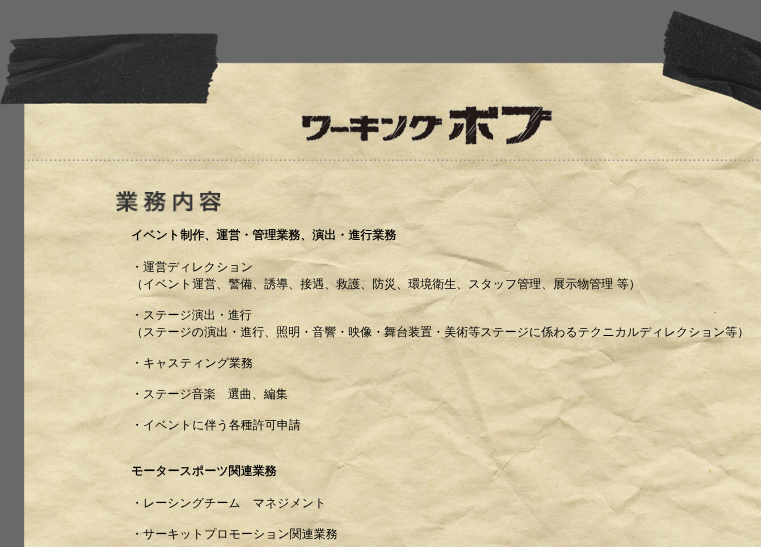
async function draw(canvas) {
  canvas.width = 761
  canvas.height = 547
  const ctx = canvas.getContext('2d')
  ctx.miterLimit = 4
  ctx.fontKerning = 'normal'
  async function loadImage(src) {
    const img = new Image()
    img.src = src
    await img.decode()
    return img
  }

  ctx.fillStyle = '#696969'
  ctx.fillRect(0, 0, 761, 547)
  ctx.drawImage(await loadImage('image0.png'), 24, 170, 737, 377)
  ctx.drawImage(await loadImage('image1.png'), 0, 11, 761, 159)
  ctx.drawImage(await loadImage('image2.png'), 116, 190, 105, 22)
  ctx.font = 'bold 12px WenQuanYi Zen Hei'
  ctx.fillStyle = '#000'
  ctx.fillText('イベント制作、運営・管理業務、演出・進行業務', 131, 239)
  ctx.font = '500 12px WenQuanYi Zen Hei'
  ctx.fillText('・運営ディレクション', 131, 271)
  ctx.fillText('（イベント運営、警備、誘導、接遇、救護、防災、環境衛生、スタッフ管理、展示物管理 等）', 131, 288)
  ctx.fillText('・ステージ演出・進行', 131, 319)
  ctx.fillText('（ステージの演出・進行、照明・音響・映像・舞台装置・美術等ステージに係わるテクニカルディレクション等）', 131, 336)
  ctx.fillText('・キャスティング業務', 131, 367)
  ctx.fillText('・ステージ音楽　選曲、編集', 131, 398)
  ctx.fillText('・イベントに伴う各種許可申請', 131, 429)
  ctx.font = 'bold 12px WenQuanYi Zen Hei'
  ctx.fillText('モータースポーツ関連業務', 131, 475)
  ctx.font = '500 12px WenQuanYi Zen Hei'
  ctx.fillText('・レーシングチーム　マネジメント', 131, 507)
  ctx.fillText('・サーキットプロモーション関連業務', 131, 538)
}

draw(document.querySelector('canvas'))
